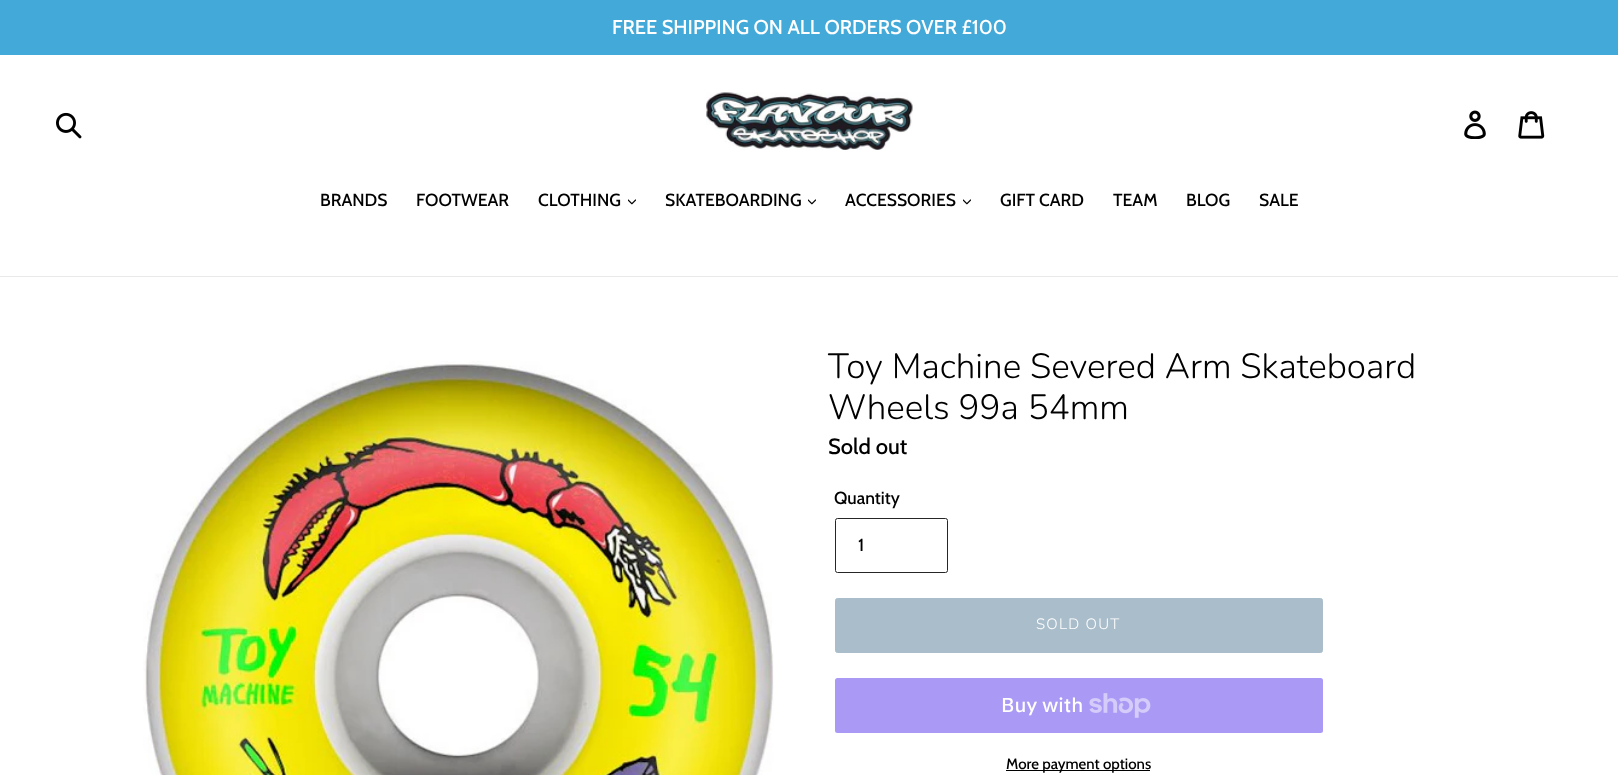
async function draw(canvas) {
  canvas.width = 1618
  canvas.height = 775
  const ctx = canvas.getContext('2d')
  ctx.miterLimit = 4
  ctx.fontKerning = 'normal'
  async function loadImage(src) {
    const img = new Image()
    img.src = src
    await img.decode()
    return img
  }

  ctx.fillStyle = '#fff'
  ctx.fillRect(0, 0, 1618, 775)
  ctx.fillStyle = '#42a9d9'
  ctx.fillRect(0, 0, 1618, 55)
  ctx.font = '500 20px Cabin'
  ctx.fillStyle = '#fff'
  ctx.fillText('FREE SHIPPING ON ALL ORDERS OVER £100', 612, 34)
  ctx.drawImage(await loadImage('image0.png'), 56, 112, 26, 27)
  ctx.drawImage(await loadImage('image1.png'), 706, 92, 207, 58)
  ctx.drawImage(await loadImage('image2.png'), 1464, 110, 22, 29)
  ctx.drawImage(await loadImage('image3.png'), 1518, 111, 27, 28)
  ctx.fillStyle = '#e8e9eb'
  ctx.fillRect(0, 276, 1618, 1)
  ctx.font = '500 17.5px Cabin'
  ctx.fillStyle = '#000'
  ctx.fillText('BRANDS', 320, 206)
  ctx.fillText('FOOTWEAR', 416, 206)
  ctx.fillText('CLOTHING', 538, 206)
  ctx.drawImage(await loadImage('image4.png'), 628, 199, 8, 6)
  ctx.fillText('SKATEBOARDING', 665, 206)
  ctx.drawImage(await loadImage('image4.png'), 808, 199, 8, 6)
  ctx.fillText('ACCESSORIES', 845, 206)
  ctx.drawImage(await loadImage('image4.png'), 963, 199, 8, 6)
  ctx.fillText('GIFT CARD', 1000, 206)
  ctx.fillText('TEAM', 1113, 206)
  ctx.fillText('BLOG', 1186, 206)
  ctx.fillText('SALE', 1259, 206)
  ctx.drawImage(await loadImage('image5.png'), 143, 361, 631, 414)
  ctx.font = '300 35px Nunito'
  ctx.fillText('Toy Machine Severed Arm Skateboard', 828, 378)
  ctx.fillText('Wheels 99a 54mm', 828, 419)
  ctx.font = '500 22px Cabin'
  ctx.fillText('Sold out', 828, 454)
  ctx.font = '500 17.5px Cabin'
  ctx.fillText('Quantity', 834, 504)
  ctx.beginPath()
  ctx.roundRect(835.5, 518.5, 112, 54, 2)
  ctx.strokeStyle = '#262626'
  ctx.stroke()
  ctx.fillText('1', 858, 551)
  ctx.fillStyle = '#aabdcb'
  ctx.beginPath()
  ctx.roundRect(835.5, 598.5, 487, 54, 2)
  ctx.fill()
  ctx.strokeStyle = '#aabdcb'
  ctx.stroke()
  ctx.letterSpacing = '1.25px'
  ctx.font = '300 15px Nunito'
  ctx.fillStyle = '#fff'
  ctx.fillText('SOLD OUT', 1036, 629)
  ctx.fillStyle = '#aa99f5'
  ctx.beginPath()
  ctx.roundRect(835, 678, 488, 55, 2.5)
  ctx.fill()
  ctx.letterSpacing = '0px'
  ctx.font = '500 20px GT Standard'
  ctx.fillStyle = '#fff'
  ctx.fillText('Buy with', 1001, 712)
  ctx.drawImage(await loadImage('image6.png'), 1089, 693, 62, 25)
  ctx.fillStyle = '#000'
  ctx.fillRect(1006, 770, 144, 1)
  ctx.font = '500 15px Cabin'
  ctx.fillText('More payment options', 1006, 769)
}

draw(document.querySelector('canvas'))
